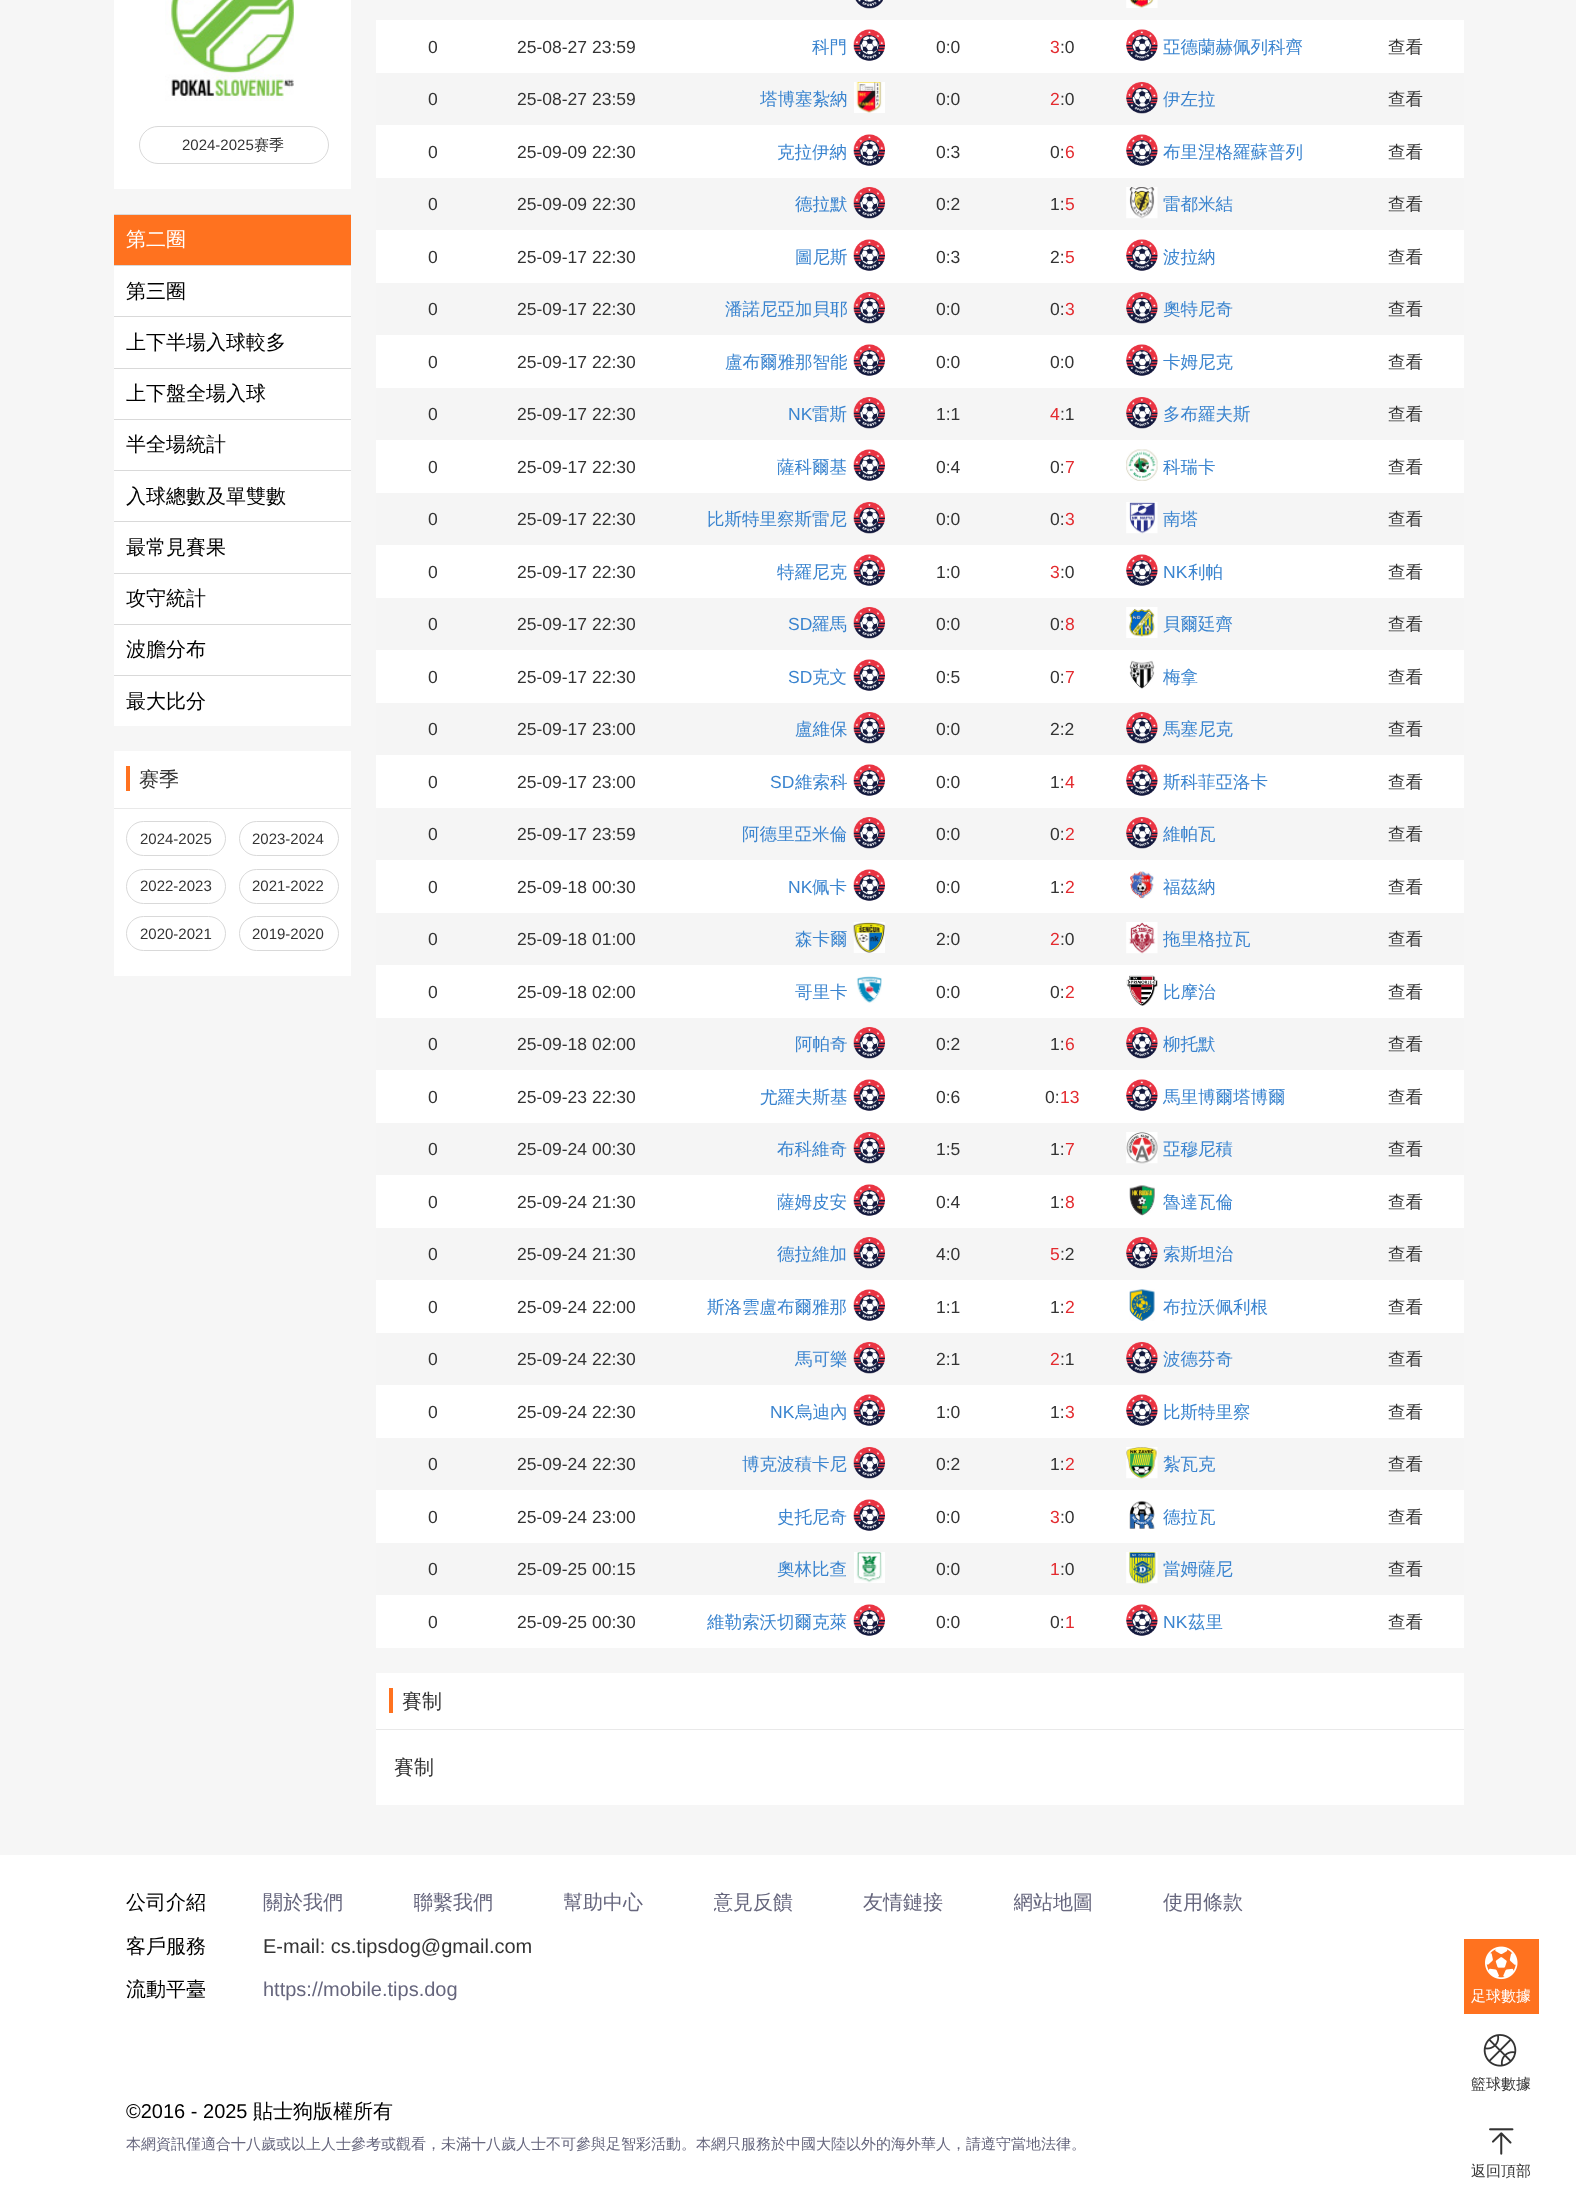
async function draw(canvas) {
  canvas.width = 1576
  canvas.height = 2195
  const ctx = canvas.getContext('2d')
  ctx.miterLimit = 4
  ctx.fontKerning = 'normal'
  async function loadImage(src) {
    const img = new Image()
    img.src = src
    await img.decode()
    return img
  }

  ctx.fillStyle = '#f6f6f6'
  ctx.fillRect(0, 0, 1576, 2195)
  ctx.fillStyle = '#fff'
  ctx.fillRect(114, 0, 237, 189)
  ctx.drawImage(await loadImage('image0.png'), 165, 0, 129, 101)
  ctx.beginPath()
  ctx.roundRect(139.5, 126.5, 189, 37, 18.5)
  ctx.strokeStyle = '#d9d9d9'
  ctx.stroke()
  ctx.font = '15px Liberation Sans'
  ctx.fillStyle = '#333'
  ctx.fillText('2024-2025', 182, 150)
  ctx.font = '500 15px WenQuanYi Zen Hei'
  ctx.fillText('赛季', 254, 150)
  ctx.fillStyle = '#fff'
  ctx.fillRect(114, 266, 237, 460)
  ctx.fillStyle = '#d9d9d9'
  ctx.fillRect(114, 214, 237, 1)
  ctx.fillStyle = '#ff721f'
  ctx.fillRect(114, 215, 237, 50)
  ctx.font = '500 20px WenQuanYi Zen Hei'
  ctx.fillStyle = '#fff'
  ctx.fillText('第二圈', 126, 246)
  ctx.fillStyle = '#d9d9d9'
  ctx.fillRect(114, 265, 237, 1)
  ctx.fillStyle = '#000'
  ctx.fillText('第三圈', 126, 298)
  ctx.fillStyle = '#d9d9d9'
  ctx.fillRect(114, 316, 237, 1)
  ctx.fillStyle = '#000'
  ctx.fillText('上下半場入球較多', 126, 349)
  ctx.fillStyle = '#d9d9d9'
  ctx.fillRect(114, 368, 237, 1)
  ctx.fillStyle = '#000'
  ctx.fillText('上下盤全場入球', 126, 400)
  ctx.fillStyle = '#d9d9d9'
  ctx.fillRect(114, 419, 237, 1)
  ctx.fillStyle = '#000'
  ctx.fillText('半全場統計', 126, 451)
  ctx.fillStyle = '#d9d9d9'
  ctx.fillRect(114, 470, 237, 1)
  ctx.fillStyle = '#000'
  ctx.fillText('入球總數及單雙數', 126, 503)
  ctx.fillStyle = '#d9d9d9'
  ctx.fillRect(114, 521, 237, 1)
  ctx.fillStyle = '#000'
  ctx.fillText('最常見賽果', 126, 554)
  ctx.fillStyle = '#d9d9d9'
  ctx.fillRect(114, 573, 237, 1)
  ctx.fillStyle = '#000'
  ctx.fillText('攻守統計', 126, 605)
  ctx.fillStyle = '#d9d9d9'
  ctx.fillRect(114, 624, 237, 1)
  ctx.fillStyle = '#000'
  ctx.fillText('波膽分布', 126, 656)
  ctx.fillStyle = '#d9d9d9'
  ctx.fillRect(114, 675, 237, 1)
  ctx.fillStyle = '#000'
  ctx.fillText('最大比分', 126, 708)
  ctx.fillStyle = '#fff'
  ctx.fillRect(114, 751, 237, 225)
  ctx.fillStyle = '#e9e9e9'
  ctx.fillRect(114, 808, 237, 1)
  ctx.fillStyle = '#ff721f'
  ctx.fillRect(126, 766, 4, 25)
  ctx.fillStyle = '#333'
  ctx.fillText('赛季', 139, 786)
  ctx.beginPath()
  ctx.roundRect(126.5, 821.5, 99, 34, 17)
  ctx.stroke()
  ctx.font = '15px Liberation Sans'
  ctx.fillText('2024-2025', 140, 844)
  ctx.beginPath()
  ctx.roundRect(239.5, 821.5, 99, 34, 17)
  ctx.stroke()
  ctx.fillText('2023-2024', 252, 844)
  ctx.beginPath()
  ctx.roundRect(126.5, 869.5, 99, 34, 17)
  ctx.stroke()
  ctx.fillText('2022-2023', 140, 891)
  ctx.beginPath()
  ctx.roundRect(239.5, 869.5, 99, 34, 17)
  ctx.stroke()
  ctx.fillText('2021-2022', 252, 891)
  ctx.beginPath()
  ctx.roundRect(126.5, 916.5, 99, 34, 17)
  ctx.stroke()
  ctx.fillText('2020-2021', 140, 939)
  ctx.beginPath()
  ctx.roundRect(239.5, 916.5, 99, 34, 17)
  ctx.stroke()
  ctx.fillText('2019-2020', 252, 939)
  ctx.fillStyle = '#fff'
  ctx.fillRect(376, 20, 1088, 1628)
  ctx.drawImage(await loadImage('image1.png'), 855, 0, 28, 9)
  ctx.drawImage(await loadImage('image2.png'), 1126, 0, 32, 8)
  ctx.font = '17.5px Liberation Sans'
  ctx.fillStyle = '#333'
  ctx.fillText('0', 428, 53)
  ctx.fillText('25-08-27 23:59', 517, 53)
  ctx.font = '500 17.5px WenQuanYi Zen Hei'
  ctx.fillStyle = '#3a84cf'
  ctx.fillText('科門', 812, 53)
  ctx.drawImage(await loadImage('image3.png'), 853, 29, 32, 32)
  ctx.font = '17.5px Liberation Sans'
  ctx.fillStyle = '#333'
  ctx.fillText('0:0', 936, 53)
  ctx.fillStyle = '#e32a2e'
  ctx.fillText('3', 1050, 53)
  ctx.fillStyle = '#333'
  ctx.fillText(':0', 1060, 53)
  ctx.drawImage(await loadImage('image4.png'), 1126, 29, 32, 32)
  ctx.font = '500 17.5px WenQuanYi Zen Hei'
  ctx.fillStyle = '#3a84cf'
  ctx.fillText('亞德蘭赫佩列科齊', 1163, 53)
  ctx.fillStyle = '#333'
  ctx.fillText('查看', 1388, 53)
  ctx.fillStyle = '#f5f5f5'
  ctx.fillRect(376, 73, 1088, 52)
  ctx.font = '17.5px Liberation Sans'
  ctx.fillStyle = '#333'
  ctx.fillText('0', 428, 105)
  ctx.fillText('25-08-27 23:59', 517, 105)
  ctx.font = '500 17.5px WenQuanYi Zen Hei'
  ctx.fillStyle = '#3a84cf'
  ctx.fillText('塔博塞紮納', 760, 105)
  ctx.drawImage(await loadImage('image5.png'), 854, 82, 31, 31)
  ctx.font = '17.5px Liberation Sans'
  ctx.fillStyle = '#333'
  ctx.fillText('0:0', 936, 105)
  ctx.fillStyle = '#e32a2e'
  ctx.fillText('2', 1050, 105)
  ctx.fillStyle = '#333'
  ctx.fillText(':0', 1060, 105)
  ctx.drawImage(await loadImage('image6.png'), 1126, 82, 32, 32)
  ctx.font = '500 17.5px WenQuanYi Zen Hei'
  ctx.fillStyle = '#3a84cf'
  ctx.fillText('伊左拉', 1163, 105)
  ctx.fillStyle = '#333'
  ctx.fillText('查看', 1388, 105)
  ctx.font = '17.5px Liberation Sans'
  ctx.fillText('0', 428, 158)
  ctx.fillText('25-09-09 22:30', 517, 158)
  ctx.font = '500 17.5px WenQuanYi Zen Hei'
  ctx.fillStyle = '#3a84cf'
  ctx.fillText('克拉伊納', 777, 158)
  ctx.drawImage(await loadImage('image3.png'), 853, 134, 32, 32)
  ctx.font = '17.5px Liberation Sans'
  ctx.fillStyle = '#333'
  ctx.fillText('0:3', 936, 158)
  ctx.fillText('0:', 1050, 158)
  ctx.fillStyle = '#e32a2e'
  ctx.fillText('6', 1065, 158)
  ctx.drawImage(await loadImage('image4.png'), 1126, 134, 32, 32)
  ctx.font = '500 17.5px WenQuanYi Zen Hei'
  ctx.fillStyle = '#3a84cf'
  ctx.fillText('布里涅格羅蘇普列', 1163, 158)
  ctx.fillStyle = '#333'
  ctx.fillText('查看', 1388, 158)
  ctx.fillStyle = '#f5f5f5'
  ctx.fillRect(376, 178, 1088, 52)
  ctx.font = '17.5px Liberation Sans'
  ctx.fillStyle = '#333'
  ctx.fillText('0', 428, 210)
  ctx.fillText('25-09-09 22:30', 517, 210)
  ctx.font = '500 17.5px WenQuanYi Zen Hei'
  ctx.fillStyle = '#3a84cf'
  ctx.fillText('德拉默', 795, 210)
  ctx.drawImage(await loadImage('image7.png'), 853, 187, 32, 32)
  ctx.font = '17.5px Liberation Sans'
  ctx.fillStyle = '#333'
  ctx.fillText('0:2', 936, 210)
  ctx.fillText('1:', 1050, 210)
  ctx.fillStyle = '#e32a2e'
  ctx.fillText('5', 1065, 210)
  ctx.drawImage(await loadImage('image8.png'), 1126, 187, 32, 32)
  ctx.font = '500 17.5px WenQuanYi Zen Hei'
  ctx.fillStyle = '#3a84cf'
  ctx.fillText('雷都米結', 1163, 210)
  ctx.fillStyle = '#333'
  ctx.fillText('查看', 1388, 210)
  ctx.font = '17.5px Liberation Sans'
  ctx.fillText('0', 428, 263)
  ctx.fillText('25-09-17 22:30', 517, 263)
  ctx.font = '500 17.5px WenQuanYi Zen Hei'
  ctx.fillStyle = '#3a84cf'
  ctx.fillText('圖尼斯', 795, 263)
  ctx.drawImage(await loadImage('image3.png'), 853, 239, 32, 32)
  ctx.font = '17.5px Liberation Sans'
  ctx.fillStyle = '#333'
  ctx.fillText('0:3', 936, 263)
  ctx.fillText('2:', 1050, 263)
  ctx.fillStyle = '#e32a2e'
  ctx.fillText('5', 1065, 263)
  ctx.drawImage(await loadImage('image4.png'), 1126, 239, 32, 32)
  ctx.font = '500 17.5px WenQuanYi Zen Hei'
  ctx.fillStyle = '#3a84cf'
  ctx.fillText('波拉納', 1163, 263)
  ctx.fillStyle = '#333'
  ctx.fillText('查看', 1388, 263)
  ctx.fillStyle = '#f5f5f5'
  ctx.fillRect(376, 283, 1088, 52)
  ctx.font = '17.5px Liberation Sans'
  ctx.fillStyle = '#333'
  ctx.fillText('0', 428, 315)
  ctx.fillText('25-09-17 22:30', 517, 315)
  ctx.font = '500 17.5px WenQuanYi Zen Hei'
  ctx.fillStyle = '#3a84cf'
  ctx.fillText('潘諾尼亞加貝耶', 725, 315)
  ctx.drawImage(await loadImage('image7.png'), 853, 292, 32, 32)
  ctx.font = '17.5px Liberation Sans'
  ctx.fillStyle = '#333'
  ctx.fillText('0:0', 936, 315)
  ctx.fillText('0:', 1050, 315)
  ctx.fillStyle = '#e32a2e'
  ctx.fillText('3', 1065, 315)
  ctx.drawImage(await loadImage('image6.png'), 1126, 292, 32, 32)
  ctx.font = '500 17.5px WenQuanYi Zen Hei'
  ctx.fillStyle = '#3a84cf'
  ctx.fillText('奧特尼奇', 1163, 315)
  ctx.fillStyle = '#333'
  ctx.fillText('查看', 1388, 315)
  ctx.font = '17.5px Liberation Sans'
  ctx.fillText('0', 428, 368)
  ctx.fillText('25-09-17 22:30', 517, 368)
  ctx.font = '500 17.5px WenQuanYi Zen Hei'
  ctx.fillStyle = '#3a84cf'
  ctx.fillText('盧布爾雅那智能', 725, 368)
  ctx.drawImage(await loadImage('image3.png'), 853, 344, 32, 32)
  ctx.font = '17.5px Liberation Sans'
  ctx.fillStyle = '#333'
  ctx.fillText('0:0', 936, 368)
  ctx.fillText('0:0', 1050, 368)
  ctx.drawImage(await loadImage('image4.png'), 1126, 344, 32, 32)
  ctx.font = '500 17.5px WenQuanYi Zen Hei'
  ctx.fillStyle = '#3a84cf'
  ctx.fillText('卡姆尼克', 1163, 368)
  ctx.fillStyle = '#333'
  ctx.fillText('查看', 1388, 368)
  ctx.fillStyle = '#f5f5f5'
  ctx.fillRect(376, 388, 1088, 52)
  ctx.font = '17.5px Liberation Sans'
  ctx.fillStyle = '#333'
  ctx.fillText('0', 428, 420)
  ctx.fillText('25-09-17 22:30', 517, 420)
  ctx.fillStyle = '#3a84cf'
  ctx.fillText('NK', 788, 420)
  ctx.font = '500 17.5px WenQuanYi Zen Hei'
  ctx.fillText('雷斯', 812, 420)
  ctx.drawImage(await loadImage('image7.png'), 853, 397, 32, 32)
  ctx.font = '17.5px Liberation Sans'
  ctx.fillStyle = '#333'
  ctx.fillText('1:1', 936, 420)
  ctx.fillStyle = '#e32a2e'
  ctx.fillText('4', 1050, 420)
  ctx.fillStyle = '#333'
  ctx.fillText(':1', 1060, 420)
  ctx.drawImage(await loadImage('image6.png'), 1126, 397, 32, 32)
  ctx.font = '500 17.5px WenQuanYi Zen Hei'
  ctx.fillStyle = '#3a84cf'
  ctx.fillText('多布羅夫斯', 1163, 420)
  ctx.fillStyle = '#333'
  ctx.fillText('查看', 1388, 420)
  ctx.font = '17.5px Liberation Sans'
  ctx.fillText('0', 428, 473)
  ctx.fillText('25-09-17 22:30', 517, 473)
  ctx.font = '500 17.5px WenQuanYi Zen Hei'
  ctx.fillStyle = '#3a84cf'
  ctx.fillText('薩科爾基', 777, 473)
  ctx.drawImage(await loadImage('image3.png'), 853, 449, 32, 32)
  ctx.font = '17.5px Liberation Sans'
  ctx.fillStyle = '#333'
  ctx.fillText('0:4', 936, 473)
  ctx.fillText('0:', 1050, 473)
  ctx.fillStyle = '#e32a2e'
  ctx.fillText('7', 1065, 473)
  ctx.drawImage(await loadImage('image9.png'), 1126, 449, 32, 32)
  ctx.font = '500 17.5px WenQuanYi Zen Hei'
  ctx.fillStyle = '#3a84cf'
  ctx.fillText('科瑞卡', 1163, 473)
  ctx.fillStyle = '#333'
  ctx.fillText('查看', 1388, 473)
  ctx.fillStyle = '#f5f5f5'
  ctx.fillRect(376, 493, 1088, 52)
  ctx.font = '17.5px Liberation Sans'
  ctx.fillStyle = '#333'
  ctx.fillText('0', 428, 525)
  ctx.fillText('25-09-17 22:30', 517, 525)
  ctx.font = '500 17.5px WenQuanYi Zen Hei'
  ctx.fillStyle = '#3a84cf'
  ctx.fillText('比斯特里察斯雷尼', 707, 525)
  ctx.drawImage(await loadImage('image7.png'), 853, 502, 32, 32)
  ctx.font = '17.5px Liberation Sans'
  ctx.fillStyle = '#333'
  ctx.fillText('0:0', 936, 525)
  ctx.fillText('0:', 1050, 525)
  ctx.fillStyle = '#e32a2e'
  ctx.fillText('3', 1065, 525)
  ctx.drawImage(await loadImage('image10.png'), 1126, 502, 32, 32)
  ctx.font = '500 17.5px WenQuanYi Zen Hei'
  ctx.fillStyle = '#3a84cf'
  ctx.fillText('南塔', 1163, 525)
  ctx.fillStyle = '#333'
  ctx.fillText('查看', 1388, 525)
  ctx.font = '17.5px Liberation Sans'
  ctx.fillText('0', 428, 578)
  ctx.fillText('25-09-17 22:30', 517, 578)
  ctx.font = '500 17.5px WenQuanYi Zen Hei'
  ctx.fillStyle = '#3a84cf'
  ctx.fillText('特羅尼克', 777, 578)
  ctx.drawImage(await loadImage('image3.png'), 853, 554, 32, 32)
  ctx.font = '17.5px Liberation Sans'
  ctx.fillStyle = '#333'
  ctx.fillText('1:0', 936, 578)
  ctx.fillStyle = '#e32a2e'
  ctx.fillText('3', 1050, 578)
  ctx.fillStyle = '#333'
  ctx.fillText(':0', 1060, 578)
  ctx.drawImage(await loadImage('image4.png'), 1126, 554, 32, 32)
  ctx.fillStyle = '#3a84cf'
  ctx.fillText('NK', 1163, 578)
  ctx.font = '500 17.5px WenQuanYi Zen Hei'
  ctx.fillText('利帕', 1188, 578)
  ctx.fillStyle = '#333'
  ctx.fillText('查看', 1388, 578)
  ctx.fillStyle = '#f5f5f5'
  ctx.fillRect(376, 598, 1088, 52)
  ctx.font = '17.5px Liberation Sans'
  ctx.fillStyle = '#333'
  ctx.fillText('0', 428, 630)
  ctx.fillText('25-09-17 22:30', 517, 630)
  ctx.fillStyle = '#3a84cf'
  ctx.fillText('SD', 788, 630)
  ctx.font = '500 17.5px WenQuanYi Zen Hei'
  ctx.fillText('羅馬', 812, 630)
  ctx.drawImage(await loadImage('image7.png'), 853, 607, 32, 32)
  ctx.font = '17.5px Liberation Sans'
  ctx.fillStyle = '#333'
  ctx.fillText('0:0', 936, 630)
  ctx.fillText('0:', 1050, 630)
  ctx.fillStyle = '#e32a2e'
  ctx.fillText('8', 1065, 630)
  ctx.drawImage(await loadImage('image11.png'), 1126, 607, 32, 31)
  ctx.font = '500 17.5px WenQuanYi Zen Hei'
  ctx.fillStyle = '#3a84cf'
  ctx.fillText('貝爾廷齊', 1163, 630)
  ctx.fillStyle = '#333'
  ctx.fillText('查看', 1388, 630)
  ctx.font = '17.5px Liberation Sans'
  ctx.fillText('0', 428, 683)
  ctx.fillText('25-09-17 22:30', 517, 683)
  ctx.fillStyle = '#3a84cf'
  ctx.fillText('SD', 788, 683)
  ctx.font = '500 17.5px WenQuanYi Zen Hei'
  ctx.fillText('克文', 812, 683)
  ctx.drawImage(await loadImage('image3.png'), 853, 659, 32, 32)
  ctx.font = '17.5px Liberation Sans'
  ctx.fillStyle = '#333'
  ctx.fillText('0:5', 936, 683)
  ctx.fillText('0:', 1050, 683)
  ctx.fillStyle = '#e32a2e'
  ctx.fillText('7', 1065, 683)
  ctx.drawImage(await loadImage('image12.png'), 1129, 660, 26, 29)
  ctx.font = '500 17.5px WenQuanYi Zen Hei'
  ctx.fillStyle = '#3a84cf'
  ctx.fillText('梅拿', 1163, 683)
  ctx.fillStyle = '#333'
  ctx.fillText('查看', 1388, 683)
  ctx.fillStyle = '#f5f5f5'
  ctx.fillRect(376, 703, 1088, 52)
  ctx.font = '17.5px Liberation Sans'
  ctx.fillStyle = '#333'
  ctx.fillText('0', 428, 735)
  ctx.fillText('25-09-17 23:00', 517, 735)
  ctx.font = '500 17.5px WenQuanYi Zen Hei'
  ctx.fillStyle = '#3a84cf'
  ctx.fillText('盧維保', 795, 735)
  ctx.drawImage(await loadImage('image7.png'), 853, 712, 32, 32)
  ctx.font = '17.5px Liberation Sans'
  ctx.fillStyle = '#333'
  ctx.fillText('0:0', 936, 735)
  ctx.fillText('2:2', 1050, 735)
  ctx.drawImage(await loadImage('image6.png'), 1126, 712, 32, 32)
  ctx.font = '500 17.5px WenQuanYi Zen Hei'
  ctx.fillStyle = '#3a84cf'
  ctx.fillText('馬塞尼克', 1163, 735)
  ctx.fillStyle = '#333'
  ctx.fillText('查看', 1388, 735)
  ctx.font = '17.5px Liberation Sans'
  ctx.fillText('0', 428, 788)
  ctx.fillText('25-09-17 23:00', 517, 788)
  ctx.fillStyle = '#3a84cf'
  ctx.fillText('SD', 770, 788)
  ctx.font = '500 17.5px WenQuanYi Zen Hei'
  ctx.fillText('維索科', 795, 788)
  ctx.drawImage(await loadImage('image3.png'), 853, 764, 32, 32)
  ctx.font = '17.5px Liberation Sans'
  ctx.fillStyle = '#333'
  ctx.fillText('0:0', 936, 788)
  ctx.fillText('1:', 1050, 788)
  ctx.fillStyle = '#e32a2e'
  ctx.fillText('4', 1065, 788)
  ctx.drawImage(await loadImage('image4.png'), 1126, 764, 32, 32)
  ctx.font = '500 17.5px WenQuanYi Zen Hei'
  ctx.fillStyle = '#3a84cf'
  ctx.fillText('斯科菲亞洛卡', 1163, 788)
  ctx.fillStyle = '#333'
  ctx.fillText('查看', 1388, 788)
  ctx.fillStyle = '#f5f5f5'
  ctx.fillRect(376, 808, 1088, 52)
  ctx.font = '17.5px Liberation Sans'
  ctx.fillStyle = '#333'
  ctx.fillText('0', 428, 840)
  ctx.fillText('25-09-17 23:59', 517, 840)
  ctx.font = '500 17.5px WenQuanYi Zen Hei'
  ctx.fillStyle = '#3a84cf'
  ctx.fillText('阿德里亞米倫', 742, 840)
  ctx.drawImage(await loadImage('image7.png'), 853, 817, 32, 32)
  ctx.font = '17.5px Liberation Sans'
  ctx.fillStyle = '#333'
  ctx.fillText('0:0', 936, 840)
  ctx.fillText('0:', 1050, 840)
  ctx.fillStyle = '#e32a2e'
  ctx.fillText('2', 1065, 840)
  ctx.drawImage(await loadImage('image6.png'), 1126, 817, 32, 32)
  ctx.font = '500 17.5px WenQuanYi Zen Hei'
  ctx.fillStyle = '#3a84cf'
  ctx.fillText('維帕瓦', 1163, 840)
  ctx.fillStyle = '#333'
  ctx.fillText('查看', 1388, 840)
  ctx.font = '17.5px Liberation Sans'
  ctx.fillText('0', 428, 893)
  ctx.fillText('25-09-18 00:30', 517, 893)
  ctx.fillStyle = '#3a84cf'
  ctx.fillText('NK', 788, 893)
  ctx.font = '500 17.5px WenQuanYi Zen Hei'
  ctx.fillText('佩卡', 812, 893)
  ctx.drawImage(await loadImage('image3.png'), 853, 869, 32, 32)
  ctx.font = '17.5px Liberation Sans'
  ctx.fillStyle = '#333'
  ctx.fillText('0:0', 936, 893)
  ctx.fillText('1:', 1050, 893)
  ctx.fillStyle = '#e32a2e'
  ctx.fillText('2', 1065, 893)
  ctx.drawImage(await loadImage('image13.png'), 1130, 871, 24, 28)
  ctx.font = '500 17.5px WenQuanYi Zen Hei'
  ctx.fillStyle = '#3a84cf'
  ctx.fillText('福茲納', 1163, 893)
  ctx.fillStyle = '#333'
  ctx.fillText('查看', 1388, 893)
  ctx.fillStyle = '#f5f5f5'
  ctx.fillRect(376, 913, 1088, 52)
  ctx.font = '17.5px Liberation Sans'
  ctx.fillStyle = '#333'
  ctx.fillText('0', 428, 945)
  ctx.fillText('25-09-18 01:00', 517, 945)
  ctx.font = '500 17.5px WenQuanYi Zen Hei'
  ctx.fillStyle = '#3a84cf'
  ctx.fillText('森卡爾', 795, 945)
  ctx.drawImage(await loadImage('image14.png'), 853, 922, 32, 31)
  ctx.font = '17.5px Liberation Sans'
  ctx.fillStyle = '#333'
  ctx.fillText('2:0', 936, 945)
  ctx.fillStyle = '#e32a2e'
  ctx.fillText('2', 1050, 945)
  ctx.fillStyle = '#333'
  ctx.fillText(':0', 1060, 945)
  ctx.drawImage(await loadImage('image15.png'), 1126, 922, 32, 32)
  ctx.font = '500 17.5px WenQuanYi Zen Hei'
  ctx.fillStyle = '#3a84cf'
  ctx.fillText('拖里格拉瓦', 1163, 945)
  ctx.fillStyle = '#333'
  ctx.fillText('查看', 1388, 945)
  ctx.font = '17.5px Liberation Sans'
  ctx.fillText('0', 428, 998)
  ctx.fillText('25-09-18 02:00', 517, 998)
  ctx.font = '500 17.5px WenQuanYi Zen Hei'
  ctx.fillStyle = '#3a84cf'
  ctx.fillText('哥里卡', 795, 998)
  ctx.drawImage(await loadImage('image16.png'), 856, 976, 26, 27)
  ctx.font = '17.5px Liberation Sans'
  ctx.fillStyle = '#333'
  ctx.fillText('0:0', 936, 998)
  ctx.fillText('0:', 1050, 998)
  ctx.fillStyle = '#e32a2e'
  ctx.fillText('2', 1065, 998)
  ctx.drawImage(await loadImage('image17.png'), 1126, 975, 32, 31)
  ctx.font = '500 17.5px WenQuanYi Zen Hei'
  ctx.fillStyle = '#3a84cf'
  ctx.fillText('比摩治', 1163, 998)
  ctx.fillStyle = '#333'
  ctx.fillText('查看', 1388, 998)
  ctx.fillStyle = '#f5f5f5'
  ctx.fillRect(376, 1018, 1088, 52)
  ctx.font = '17.5px Liberation Sans'
  ctx.fillStyle = '#333'
  ctx.fillText('0', 428, 1050)
  ctx.fillText('25-09-18 02:00', 517, 1050)
  ctx.font = '500 17.5px WenQuanYi Zen Hei'
  ctx.fillStyle = '#3a84cf'
  ctx.fillText('阿帕奇', 795, 1050)
  ctx.drawImage(await loadImage('image7.png'), 853, 1027, 32, 32)
  ctx.font = '17.5px Liberation Sans'
  ctx.fillStyle = '#333'
  ctx.fillText('0:2', 936, 1050)
  ctx.fillText('1:', 1050, 1050)
  ctx.fillStyle = '#e32a2e'
  ctx.fillText('6', 1065, 1050)
  ctx.drawImage(await loadImage('image6.png'), 1126, 1027, 32, 32)
  ctx.font = '500 17.5px WenQuanYi Zen Hei'
  ctx.fillStyle = '#3a84cf'
  ctx.fillText('柳托默', 1163, 1050)
  ctx.fillStyle = '#333'
  ctx.fillText('查看', 1388, 1050)
  ctx.font = '17.5px Liberation Sans'
  ctx.fillText('0', 428, 1103)
  ctx.fillText('25-09-23 22:30', 517, 1103)
  ctx.font = '500 17.5px WenQuanYi Zen Hei'
  ctx.fillStyle = '#3a84cf'
  ctx.fillText('尤羅夫斯基', 760, 1103)
  ctx.drawImage(await loadImage('image3.png'), 853, 1079, 32, 32)
  ctx.font = '17.5px Liberation Sans'
  ctx.fillStyle = '#333'
  ctx.fillText('0:6', 936, 1103)
  ctx.fillText('0:', 1045, 1103)
  ctx.fillStyle = '#e32a2e'
  ctx.fillText('13', 1060, 1103)
  ctx.drawImage(await loadImage('image4.png'), 1126, 1079, 32, 32)
  ctx.font = '500 17.5px WenQuanYi Zen Hei'
  ctx.fillStyle = '#3a84cf'
  ctx.fillText('馬里博爾塔博爾', 1163, 1103)
  ctx.fillStyle = '#333'
  ctx.fillText('查看', 1388, 1103)
  ctx.fillStyle = '#f5f5f5'
  ctx.fillRect(376, 1123, 1088, 52)
  ctx.font = '17.5px Liberation Sans'
  ctx.fillStyle = '#333'
  ctx.fillText('0', 428, 1155)
  ctx.fillText('25-09-24 00:30', 517, 1155)
  ctx.font = '500 17.5px WenQuanYi Zen Hei'
  ctx.fillStyle = '#3a84cf'
  ctx.fillText('布科維奇', 777, 1155)
  ctx.drawImage(await loadImage('image7.png'), 853, 1132, 32, 32)
  ctx.font = '17.5px Liberation Sans'
  ctx.fillStyle = '#333'
  ctx.fillText('1:5', 936, 1155)
  ctx.fillText('1:', 1050, 1155)
  ctx.fillStyle = '#e32a2e'
  ctx.fillText('7', 1065, 1155)
  ctx.drawImage(await loadImage('image18.png'), 1126, 1132, 32, 32)
  ctx.font = '500 17.5px WenQuanYi Zen Hei'
  ctx.fillStyle = '#3a84cf'
  ctx.fillText('亞穆尼積', 1163, 1155)
  ctx.fillStyle = '#333'
  ctx.fillText('查看', 1388, 1155)
  ctx.font = '17.5px Liberation Sans'
  ctx.fillText('0', 428, 1208)
  ctx.fillText('25-09-24 21:30', 517, 1208)
  ctx.font = '500 17.5px WenQuanYi Zen Hei'
  ctx.fillStyle = '#3a84cf'
  ctx.fillText('薩姆皮安', 777, 1208)
  ctx.drawImage(await loadImage('image19.png'), 853, 1184, 32, 32)
  ctx.font = '17.5px Liberation Sans'
  ctx.fillStyle = '#333'
  ctx.fillText('0:4', 936, 1208)
  ctx.fillText('1:', 1050, 1208)
  ctx.fillStyle = '#e32a2e'
  ctx.fillText('8', 1065, 1208)
  ctx.drawImage(await loadImage('image20.png'), 1129, 1185, 26, 31)
  ctx.font = '500 17.5px WenQuanYi Zen Hei'
  ctx.fillStyle = '#3a84cf'
  ctx.fillText('魯達瓦倫', 1163, 1208)
  ctx.fillStyle = '#333'
  ctx.fillText('查看', 1388, 1208)
  ctx.fillStyle = '#f5f5f5'
  ctx.fillRect(376, 1228, 1088, 52)
  ctx.font = '17.5px Liberation Sans'
  ctx.fillStyle = '#333'
  ctx.fillText('0', 428, 1260)
  ctx.fillText('25-09-24 21:30', 517, 1260)
  ctx.font = '500 17.5px WenQuanYi Zen Hei'
  ctx.fillStyle = '#3a84cf'
  ctx.fillText('德拉維加', 777, 1260)
  ctx.drawImage(await loadImage('image7.png'), 853, 1237, 32, 32)
  ctx.font = '17.5px Liberation Sans'
  ctx.fillStyle = '#333'
  ctx.fillText('4:0', 936, 1260)
  ctx.fillStyle = '#e32a2e'
  ctx.fillText('5', 1050, 1260)
  ctx.fillStyle = '#333'
  ctx.fillText(':2', 1060, 1260)
  ctx.drawImage(await loadImage('image6.png'), 1126, 1237, 32, 32)
  ctx.font = '500 17.5px WenQuanYi Zen Hei'
  ctx.fillStyle = '#3a84cf'
  ctx.fillText('索斯坦治', 1163, 1260)
  ctx.fillStyle = '#333'
  ctx.fillText('查看', 1388, 1260)
  ctx.font = '17.5px Liberation Sans'
  ctx.fillText('0', 428, 1313)
  ctx.fillText('25-09-24 22:00', 517, 1313)
  ctx.font = '500 17.5px WenQuanYi Zen Hei'
  ctx.fillStyle = '#3a84cf'
  ctx.fillText('斯洛雲盧布爾雅那', 707, 1313)
  ctx.drawImage(await loadImage('image3.png'), 853, 1289, 32, 32)
  ctx.font = '17.5px Liberation Sans'
  ctx.fillStyle = '#333'
  ctx.fillText('1:1', 936, 1313)
  ctx.fillText('1:', 1050, 1313)
  ctx.fillStyle = '#e32a2e'
  ctx.fillText('2', 1065, 1313)
  ctx.drawImage(await loadImage('image21.png'), 1129, 1289, 26, 32)
  ctx.font = '500 17.5px WenQuanYi Zen Hei'
  ctx.fillStyle = '#3a84cf'
  ctx.fillText('布拉沃佩利根', 1163, 1313)
  ctx.fillStyle = '#333'
  ctx.fillText('查看', 1388, 1313)
  ctx.fillStyle = '#f5f5f5'
  ctx.fillRect(376, 1333, 1088, 52)
  ctx.font = '17.5px Liberation Sans'
  ctx.fillStyle = '#333'
  ctx.fillText('0', 428, 1365)
  ctx.fillText('25-09-24 22:30', 517, 1365)
  ctx.font = '500 17.5px WenQuanYi Zen Hei'
  ctx.fillStyle = '#3a84cf'
  ctx.fillText('馬可樂', 795, 1365)
  ctx.drawImage(await loadImage('image7.png'), 853, 1342, 32, 32)
  ctx.font = '17.5px Liberation Sans'
  ctx.fillStyle = '#333'
  ctx.fillText('2:1', 936, 1365)
  ctx.fillStyle = '#e32a2e'
  ctx.fillText('2', 1050, 1365)
  ctx.fillStyle = '#333'
  ctx.fillText(':1', 1060, 1365)
  ctx.drawImage(await loadImage('image6.png'), 1126, 1342, 32, 32)
  ctx.font = '500 17.5px WenQuanYi Zen Hei'
  ctx.fillStyle = '#3a84cf'
  ctx.fillText('波德芬奇', 1163, 1365)
  ctx.fillStyle = '#333'
  ctx.fillText('查看', 1388, 1365)
  ctx.font = '17.5px Liberation Sans'
  ctx.fillText('0', 428, 1418)
  ctx.fillText('25-09-24 22:30', 517, 1418)
  ctx.fillStyle = '#3a84cf'
  ctx.fillText('NK', 770, 1418)
  ctx.font = '500 17.5px WenQuanYi Zen Hei'
  ctx.fillText('烏迪內', 795, 1418)
  ctx.drawImage(await loadImage('image3.png'), 853, 1394, 32, 32)
  ctx.font = '17.5px Liberation Sans'
  ctx.fillStyle = '#333'
  ctx.fillText('1:0', 936, 1418)
  ctx.fillText('1:', 1050, 1418)
  ctx.fillStyle = '#e32a2e'
  ctx.fillText('3', 1065, 1418)
  ctx.drawImage(await loadImage('image4.png'), 1126, 1394, 32, 32)
  ctx.font = '500 17.5px WenQuanYi Zen Hei'
  ctx.fillStyle = '#3a84cf'
  ctx.fillText('比斯特里察', 1163, 1418)
  ctx.fillStyle = '#333'
  ctx.fillText('查看', 1388, 1418)
  ctx.fillStyle = '#f5f5f5'
  ctx.fillRect(376, 1438, 1088, 52)
  ctx.font = '17.5px Liberation Sans'
  ctx.fillStyle = '#333'
  ctx.fillText('0', 428, 1470)
  ctx.fillText('25-09-24 22:30', 517, 1470)
  ctx.font = '500 17.5px WenQuanYi Zen Hei'
  ctx.fillStyle = '#3a84cf'
  ctx.fillText('博克波積卡尼', 742, 1470)
  ctx.drawImage(await loadImage('image7.png'), 853, 1447, 32, 32)
  ctx.font = '17.5px Liberation Sans'
  ctx.fillStyle = '#333'
  ctx.fillText('0:2', 936, 1470)
  ctx.fillText('1:', 1050, 1470)
  ctx.fillStyle = '#e32a2e'
  ctx.fillText('2', 1065, 1470)
  ctx.drawImage(await loadImage('image22.png'), 1126, 1447, 32, 32)
  ctx.font = '500 17.5px WenQuanYi Zen Hei'
  ctx.fillStyle = '#3a84cf'
  ctx.fillText('紮瓦克', 1163, 1470)
  ctx.fillStyle = '#333'
  ctx.fillText('查看', 1388, 1470)
  ctx.font = '17.5px Liberation Sans'
  ctx.fillText('0', 428, 1523)
  ctx.fillText('25-09-24 23:00', 517, 1523)
  ctx.font = '500 17.5px WenQuanYi Zen Hei'
  ctx.fillStyle = '#3a84cf'
  ctx.fillText('史托尼奇', 777, 1523)
  ctx.drawImage(await loadImage('image3.png'), 853, 1499, 32, 32)
  ctx.font = '17.5px Liberation Sans'
  ctx.fillStyle = '#333'
  ctx.fillText('0:0', 936, 1523)
  ctx.fillStyle = '#e32a2e'
  ctx.fillText('3', 1050, 1523)
  ctx.fillStyle = '#333'
  ctx.fillText(':0', 1060, 1523)
  ctx.drawImage(await loadImage('image23.png'), 1129, 1500, 26, 29)
  ctx.font = '500 17.5px WenQuanYi Zen Hei'
  ctx.fillStyle = '#3a84cf'
  ctx.fillText('德拉瓦', 1163, 1523)
  ctx.fillStyle = '#333'
  ctx.fillText('查看', 1388, 1523)
  ctx.fillStyle = '#f5f5f5'
  ctx.fillRect(376, 1543, 1088, 52)
  ctx.font = '17.5px Liberation Sans'
  ctx.fillStyle = '#333'
  ctx.fillText('0', 428, 1575)
  ctx.fillText('25-09-25 00:15', 517, 1575)
  ctx.font = '500 17.5px WenQuanYi Zen Hei'
  ctx.fillStyle = '#3a84cf'
  ctx.fillText('奧林比查', 777, 1575)
  ctx.drawImage(await loadImage('image24.png'), 854, 1552, 31, 31)
  ctx.font = '17.5px Liberation Sans'
  ctx.fillStyle = '#333'
  ctx.fillText('0:0', 936, 1575)
  ctx.fillStyle = '#e32a2e'
  ctx.fillText('1', 1050, 1575)
  ctx.fillStyle = '#333'
  ctx.fillText(':0', 1060, 1575)
  ctx.drawImage(await loadImage('image25.png'), 1126, 1552, 32, 32)
  ctx.font = '500 17.5px WenQuanYi Zen Hei'
  ctx.fillStyle = '#3a84cf'
  ctx.fillText('當姆薩尼', 1163, 1575)
  ctx.fillStyle = '#333'
  ctx.fillText('查看', 1388, 1575)
  ctx.font = '17.5px Liberation Sans'
  ctx.fillText('0', 428, 1628)
  ctx.fillText('25-09-25 00:30', 517, 1628)
  ctx.font = '500 17.5px WenQuanYi Zen Hei'
  ctx.fillStyle = '#3a84cf'
  ctx.fillText('維勒索沃切爾克萊', 707, 1628)
  ctx.drawImage(await loadImage('image3.png'), 853, 1604, 32, 32)
  ctx.font = '17.5px Liberation Sans'
  ctx.fillStyle = '#333'
  ctx.fillText('0:0', 936, 1628)
  ctx.fillText('0:', 1050, 1628)
  ctx.fillStyle = '#e32a2e'
  ctx.fillText('1', 1065, 1628)
  ctx.drawImage(await loadImage('image4.png'), 1126, 1604, 32, 32)
  ctx.fillStyle = '#3a84cf'
  ctx.fillText('NK', 1163, 1628)
  ctx.font = '500 17.5px WenQuanYi Zen Hei'
  ctx.fillText('茲里', 1188, 1628)
  ctx.fillStyle = '#333'
  ctx.fillText('查看', 1388, 1628)
  ctx.fillStyle = '#fff'
  ctx.fillRect(376, 1673, 1088, 132)
  ctx.fillStyle = '#e9e9e9'
  ctx.fillRect(376, 1729, 1088, 1)
  ctx.fillStyle = '#ff721f'
  ctx.fillRect(389, 1688, 4, 25)
  ctx.font = '500 20px WenQuanYi Zen Hei'
  ctx.fillStyle = '#333'
  ctx.fillText('賽制', 402, 1708)
  ctx.fillText('賽制', 394, 1774)
  ctx.fillStyle = '#fff'
  ctx.fillRect(0, 1855, 1576, 340)
  ctx.fillStyle = '#000'
  ctx.fillText('公司介紹', 126, 1909)
  ctx.fillStyle = '#66667d'
  ctx.fillText('關於我們', 263, 1909)
  ctx.save()
  ctx.beginPath()
  ctx.rect(414, 1886, 150, 32)
  ctx.clip()
  ctx.fillText('聯繫我們', 413, 1909)
  ctx.restore()
  ctx.save()
  ctx.beginPath()
  ctx.rect(564, 1886, 150, 32)
  ctx.clip()
  ctx.fillText('幫助中心', 563, 1909)
  ctx.restore()
  ctx.save()
  ctx.beginPath()
  ctx.rect(714, 1886, 150, 32)
  ctx.clip()
  ctx.fillText('意見反饋', 713, 1909)
  ctx.restore()
  ctx.fillText('友情鏈接', 863, 1909)
  ctx.save()
  ctx.beginPath()
  ctx.rect(1014, 1886, 150, 32)
  ctx.clip()
  ctx.fillText('網站地圖', 1013, 1909)
  ctx.restore()
  ctx.fillText('使用條款', 1163, 1909)
  ctx.fillStyle = '#000'
  ctx.fillText('客戶服務', 126, 1953)
  ctx.font = '20px Liberation Sans'
  ctx.fillStyle = '#333'
  ctx.fillText('E-mail: cs.tipsdog@gmail.com', 263, 1953)
  ctx.font = '500 20px WenQuanYi Zen Hei'
  ctx.fillStyle = '#000'
  ctx.fillText('流動平臺', 126, 1996)
  ctx.font = '20px Liberation Sans'
  ctx.fillStyle = '#66667d'
  ctx.fillText('https://mobile.tips.dog', 263, 1996)
  ctx.fillStyle = '#000'
  ctx.fillText('©2016 - 2025', 126, 2118)
  ctx.font = '500 20px WenQuanYi Zen Hei'
  ctx.fillText('貼士狗版權所有', 253, 2118)
  ctx.font = '500 15px WenQuanYi Zen Hei'
  ctx.fillStyle = '#66667d'
  ctx.fillText('本網資訊僅適合十八歲或以上人士參考或觀看，未滿十八歲人士不可參與足智彩活動。本網只服務於中國大陸以外的海外華人，請遵守當地法律。', 126, 2149)
  ctx.fillStyle = '#ff721f'
  ctx.fillRect(1464, 1939, 75, 75)
  ctx.drawImage(await loadImage('image26.png'), 1485, 1946, 33, 34)
  ctx.fillStyle = '#fff'
  ctx.fillText('足球數據', 1471, 2001)
  ctx.drawImage(await loadImage('image27.png'), 1483, 2034, 34, 33)
  ctx.fillStyle = '#333'
  ctx.fillText('籃球數據', 1471, 2089)
  ctx.drawImage(await loadImage('image28.png'), 1489, 2128, 25, 27)
  ctx.fillText('返回頂部', 1471, 2176)
}

draw(document.querySelector('canvas'))
